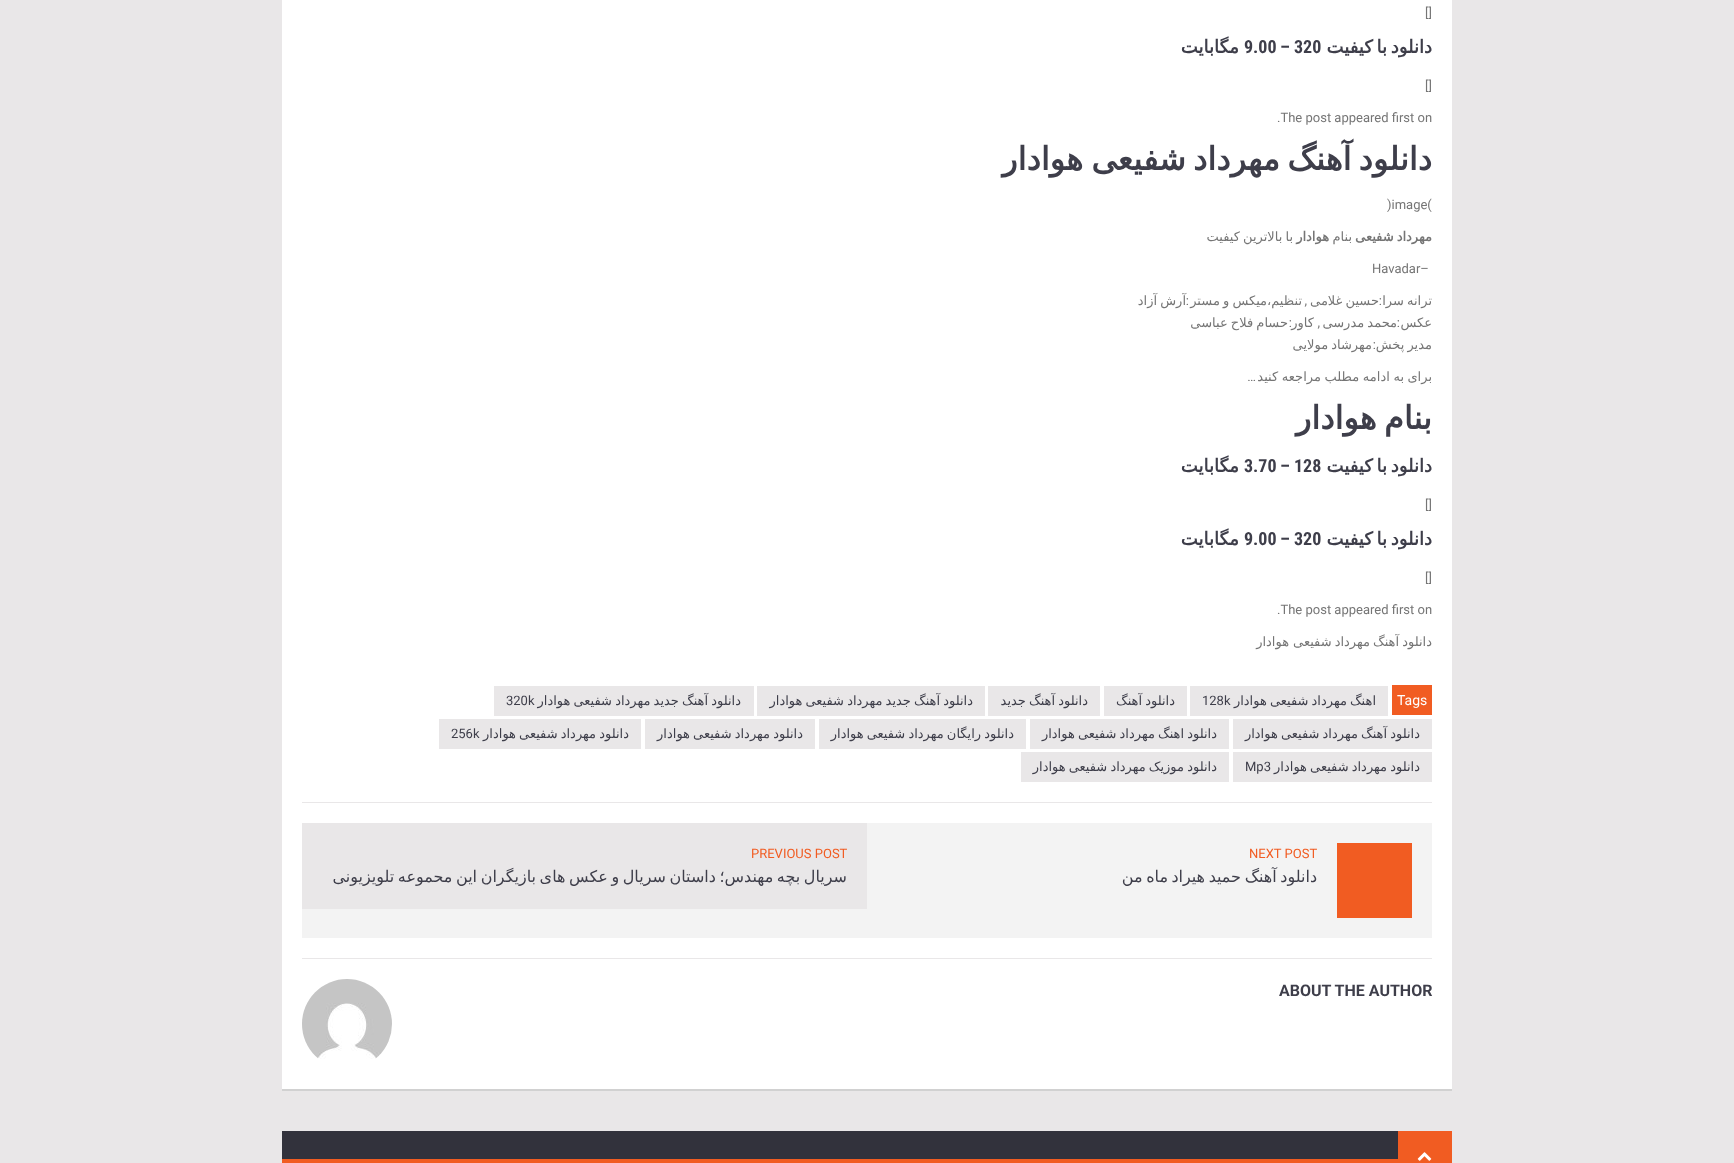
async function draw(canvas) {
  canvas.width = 1734
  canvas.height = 1163
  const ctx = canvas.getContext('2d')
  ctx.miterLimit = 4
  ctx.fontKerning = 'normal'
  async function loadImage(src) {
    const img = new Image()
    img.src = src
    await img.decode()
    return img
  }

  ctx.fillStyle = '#e9e7e8'
  ctx.fillRect(0, 0, 1734, 1163)
  ctx.fillStyle = '#fff'
  ctx.fillRect(282, 0, 1170, 1089)
  ctx.fillStyle = '#d1d1d1'
  ctx.fillRect(282, 1089, 1170, 2)
  ctx.font = '13px Roboto'
  ctx.fillStyle = '#757575'
  ctx.fillText('[]', 1425, 17)
  ctx.wordSpacing = '-2px'
  ctx.direction = 'rtl'
  ctx.font = 'bold 18px DejaVu Sans'
  ctx.fillStyle = '#3e3e4a'
  ctx.fillText('دانلود با کیفیت', 1432, 53)
  ctx.wordSpacing = '0px'
  ctx.direction = 'ltr'
  ctx.font = 'bold 18px Roboto Condensed'
  ctx.fillText('– 320', 1280, 53)
  ctx.fillText('9.00', 1244, 53)
  ctx.direction = 'rtl'
  ctx.font = 'bold 18px DejaVu Sans'
  ctx.fillText('مگابایت', 1239, 53)
  ctx.direction = 'ltr'
  ctx.font = '13px Roboto'
  ctx.fillStyle = '#757575'
  ctx.fillText('[]', 1425, 90)
  ctx.fillText('.The post appeared first on', 1277, 122)
  ctx.wordSpacing = '-3px'
  ctx.direction = 'rtl'
  ctx.font = 'bold 32px DejaVu Sans'
  ctx.fillStyle = '#3e3e4a'
  ctx.fillText('دانلود آهنگ', 1432, 170)
  ctx.fillText('مهرداد شفیعی', 1280, 170)
  ctx.wordSpacing = '0px'
  ctx.fillText('هوادار', 1083, 170)
  ctx.direction = 'ltr'
  ctx.font = '13px Roboto'
  ctx.fillStyle = '#757575'
  ctx.fillText(')image(', 1387, 209)
  ctx.wordSpacing = '-1px'
  ctx.direction = 'rtl'
  ctx.font = 'bold 13px DejaVu Sans'
  ctx.fillText('مهرداد شفیعی', 1432, 241)
  ctx.wordSpacing = '0px'
  ctx.font = '13px DejaVu Sans'
  ctx.fillText('بنام', 1352, 241)
  ctx.font = 'bold 13px DejaVu Sans'
  ctx.fillText('هوادار', 1329, 241)
  ctx.wordSpacing = '-1px'
  ctx.font = '13px DejaVu Sans'
  ctx.fillText('با بالاترین کیفیت', 1293, 241)
  ctx.wordSpacing = '0px'
  ctx.direction = 'ltr'
  ctx.font = '13px Roboto'
  ctx.fillText('Havadar–', 1372, 273)
  ctx.wordSpacing = '-1px'
  ctx.direction = 'rtl'
  ctx.font = '13px DejaVu Sans'
  ctx.fillText('ترانه سرا', 1432, 305)
  ctx.fillText('حسین غلامی', 1379, 305)
  ctx.fillText('آرش آزاد', 1186, 305)
  ctx.wordSpacing = '0px'
  ctx.font = '13px Roboto'
  ctx.fillText(':', 1189, 305)
  ctx.wordSpacing = '-1px'
  ctx.font = '13px DejaVu Sans'
  ctx.fillText('تنظیم،میکس و مستر', 1302, 305)
  ctx.wordSpacing = '0px'
  ctx.font = '13px Roboto'
  ctx.fillText(':', 1382, 305)
  ctx.fillText(',', 1307, 305)
  ctx.font = '13px DejaVu Sans'
  ctx.fillText('عکس', 1432, 327)
  ctx.font = '13px Roboto'
  ctx.fillText(':', 1400, 327)
  ctx.wordSpacing = '-1px'
  ctx.font = '13px DejaVu Sans'
  ctx.fillText('محمد مدرسی', 1397, 327)
  ctx.wordSpacing = '0px'
  ctx.font = '13px Roboto'
  ctx.fillText(',', 1320, 327)
  ctx.font = '13px DejaVu Sans'
  ctx.fillText('کاور', 1314, 327)
  ctx.font = '13px Roboto'
  ctx.fillText(':', 1292, 327)
  ctx.wordSpacing = '-1px'
  ctx.font = '13px DejaVu Sans'
  ctx.fillText('حسام فلاح عباسی', 1288, 327)
  ctx.fillText('مدیر پخش', 1432, 349)
  ctx.wordSpacing = '0px'
  ctx.font = '13px Roboto'
  ctx.fillText(':', 1376, 349)
  ctx.wordSpacing = '-1px'
  ctx.font = '13px DejaVu Sans'
  ctx.fillText('مهرشاد مولایی', 1372, 349)
  ctx.wordSpacing = '0px'
  ctx.fillText('برای', 1432, 381)
  ctx.wordSpacing = '-0.5px'
  ctx.fillText('به ادامه مطلب مراجعه کنید', 1404, 381)
  ctx.wordSpacing = '0px'
  ctx.font = '13px Roboto'
  ctx.fillText('…', 1256, 381)
  ctx.wordSpacing = '-3px'
  ctx.font = 'bold 32px DejaVu Sans'
  ctx.fillStyle = '#3e3e4a'
  ctx.fillText('بنام هوادار', 1432, 429)
  ctx.wordSpacing = '-2px'
  ctx.font = 'bold 18px DejaVu Sans'
  ctx.fillText('دانلود با کیفیت', 1432, 472)
  ctx.wordSpacing = '0px'
  ctx.direction = 'ltr'
  ctx.font = 'bold 18px Roboto Condensed'
  ctx.fillText('– 128', 1280, 472)
  ctx.fillText('3.70', 1244, 472)
  ctx.direction = 'rtl'
  ctx.font = 'bold 18px DejaVu Sans'
  ctx.fillText('مگابایت', 1239, 472)
  ctx.direction = 'ltr'
  ctx.font = '13px Roboto'
  ctx.fillStyle = '#757575'
  ctx.fillText('[]', 1425, 509)
  ctx.wordSpacing = '-2px'
  ctx.direction = 'rtl'
  ctx.font = 'bold 18px DejaVu Sans'
  ctx.fillStyle = '#3e3e4a'
  ctx.fillText('دانلود با کیفیت', 1432, 545)
  ctx.wordSpacing = '0px'
  ctx.direction = 'ltr'
  ctx.font = 'bold 18px Roboto Condensed'
  ctx.fillText('– 320', 1280, 545)
  ctx.fillText('9.00', 1244, 545)
  ctx.direction = 'rtl'
  ctx.font = 'bold 18px DejaVu Sans'
  ctx.fillText('مگابایت', 1239, 545)
  ctx.direction = 'ltr'
  ctx.font = '13px Roboto'
  ctx.fillStyle = '#757575'
  ctx.fillText('[]', 1425, 582)
  ctx.fillText('.The post appeared first on', 1277, 614)
  ctx.wordSpacing = '-1px'
  ctx.direction = 'rtl'
  ctx.font = '13px DejaVu Sans'
  ctx.fillText('دانلود آهنگ', 1432, 646)
  ctx.fillText('مهرداد شفیعی', 1370, 646)
  ctx.wordSpacing = '0px'
  ctx.fillText('هوادار', 1289, 646)
  ctx.fillStyle = '#f15c22'
  ctx.fillRect(1392, 685, 40, 30)
  ctx.direction = 'ltr'
  ctx.font = '14px Roboto'
  ctx.fillStyle = '#fff'
  ctx.fillText('Tags', 1397, 705)
  ctx.fillStyle = '#e9e7e8'
  ctx.fillRect(1190, 686, 198, 30)
  ctx.wordSpacing = '-1px'
  ctx.direction = 'rtl'
  ctx.font = '13px DejaVu Sans'
  ctx.fillStyle = '#3e3e4a'
  ctx.fillText('اهنگ مهرداد شفیعی هوادار', 1376, 705)
  ctx.wordSpacing = '0px'
  ctx.direction = 'ltr'
  ctx.font = '13px Roboto'
  ctx.fillText('128k', 1202, 705)
  ctx.fillStyle = '#e9e7e8'
  ctx.fillRect(1104, 686, 83, 30)
  ctx.wordSpacing = '-1px'
  ctx.direction = 'rtl'
  ctx.font = '13px DejaVu Sans'
  ctx.fillStyle = '#3e3e4a'
  ctx.fillText('دانلود آهنگ', 1175, 705)
  ctx.fillStyle = '#e9e7e8'
  ctx.fillRect(988, 686, 112, 30)
  ctx.fillStyle = '#3e3e4a'
  ctx.fillText('دانلود آهنگ جدید', 1088, 705)
  ctx.fillStyle = '#e9e7e8'
  ctx.fillRect(757, 686, 228, 30)
  ctx.fillStyle = '#3e3e4a'
  ctx.fillText('دانلود آهنگ جدید مهرداد شفیعی هوادار', 973, 705)
  ctx.fillStyle = '#e9e7e8'
  ctx.fillRect(494, 686, 260, 30)
  ctx.fillStyle = '#3e3e4a'
  ctx.fillText('دانلود آهنگ جدید مهرداد شفیعی هوادار', 741, 705)
  ctx.wordSpacing = '0px'
  ctx.direction = 'ltr'
  ctx.font = '13px Roboto'
  ctx.fillText('320k', 506, 705)
  ctx.fillStyle = '#e9e7e8'
  ctx.fillRect(1233, 719, 199, 30)
  ctx.wordSpacing = '-1px'
  ctx.direction = 'rtl'
  ctx.font = '13px DejaVu Sans'
  ctx.fillStyle = '#3e3e4a'
  ctx.fillText('دانلود آهنگ مهرداد شفیعی هوادار', 1420, 738)
  ctx.fillStyle = '#e9e7e8'
  ctx.fillRect(1030, 719, 199, 30)
  ctx.fillStyle = '#3e3e4a'
  ctx.fillText('دانلود اهنگ مهرداد شفیعی هوادار', 1217, 738)
  ctx.fillStyle = '#e9e7e8'
  ctx.fillRect(819, 719, 207, 30)
  ctx.fillStyle = '#3e3e4a'
  ctx.fillText('دانلود رایگان مهرداد شفیعی هوادار', 1014, 738)
  ctx.fillStyle = '#e9e7e8'
  ctx.fillRect(645, 719, 170, 30)
  ctx.fillStyle = '#3e3e4a'
  ctx.fillText('دانلود مهرداد شفیعی هوادار', 803, 738)
  ctx.fillStyle = '#e9e7e8'
  ctx.fillRect(439, 719, 202, 30)
  ctx.fillStyle = '#3e3e4a'
  ctx.fillText('دانلود مهرداد شفیعی هوادار', 629, 738)
  ctx.wordSpacing = '0px'
  ctx.direction = 'ltr'
  ctx.font = '13px Roboto'
  ctx.fillText('256k', 451, 738)
  ctx.fillStyle = '#e9e7e8'
  ctx.fillRect(1233, 752, 199, 30)
  ctx.wordSpacing = '-1px'
  ctx.direction = 'rtl'
  ctx.font = '13px DejaVu Sans'
  ctx.fillStyle = '#3e3e4a'
  ctx.fillText('دانلود مهرداد شفیعی هوادار', 1420, 771)
  ctx.wordSpacing = '0px'
  ctx.direction = 'ltr'
  ctx.font = '13px Roboto'
  ctx.fillText('Mp3', 1245, 771)
  ctx.fillStyle = '#e9e7e8'
  ctx.fillRect(1021, 752, 208, 30)
  ctx.wordSpacing = '-1px'
  ctx.direction = 'rtl'
  ctx.font = '13px DejaVu Sans'
  ctx.fillStyle = '#3e3e4a'
  ctx.fillText('دانلود موزیک مهرداد شفیعی هوادار', 1217, 771)
  ctx.fillStyle = '#e9e7e8'
  ctx.fillRect(302, 802, 1130, 1)
  ctx.fillStyle = '#f3f3f3'
  ctx.fillRect(302, 823, 1130, 115)
  ctx.fillStyle = '#f15c22'
  ctx.fillRect(1337, 843, 75, 75)
  ctx.wordSpacing = '0px'
  ctx.direction = 'ltr'
  ctx.font = '13px Roboto'
  ctx.fillText('NEXT POST', 1249, 858)
  ctx.save()
  ctx.beginPath()
  ctx.rect(887, 843, 430, 46)
  ctx.clip()
  ctx.wordSpacing = '-1.5px'
  ctx.direction = 'rtl'
  ctx.font = '16px DejaVu Sans'
  ctx.fillStyle = '#3e3e4a'
  ctx.fillText('دانلود آهنگ', 1317, 882)
  ctx.restore()
  ctx.wordSpacing = '-1.5px'
  ctx.direction = 'rtl'
  ctx.font = '16px DejaVu Sans'
  ctx.fillStyle = '#3e3e4a'
  ctx.fillText('حمید هیراد', 1241, 882)
  ctx.fillText('ماه من', 1168, 882)
  ctx.fillStyle = '#e9e7e8'
  ctx.fillRect(302, 823, 565, 86)
  ctx.wordSpacing = '0px'
  ctx.direction = 'ltr'
  ctx.font = '13px Roboto'
  ctx.fillStyle = '#f15c22'
  ctx.fillText('PREVIOUS POST', 751, 858)
  ctx.save()
  ctx.beginPath()
  ctx.rect(322, 843, 525, 46)
  ctx.clip()
  ctx.wordSpacing = '-1.5px'
  ctx.direction = 'rtl'
  ctx.font = '16px DejaVu Sans'
  ctx.fillStyle = '#3e3e4a'
  ctx.fillText('سریال بچه مهندس؛ داستان سریال و عکس های بازیگران این محموعه تلویزیونی', 847, 882)
  ctx.restore()
  ctx.fillStyle = '#e9e7e8'
  ctx.fillRect(302, 958, 1130, 1)
  ctx.font = 'bold 16px Roboto'
  ctx.fillStyle = '#3e3e4a'
  ctx.fillText('ABOUT THE AUTHOR', 1279, 996)
  ctx.drawImage(await loadImage('image0.png'), 302, 979, 90, 80)
  ctx.fillStyle = '#32323c'
  ctx.fillRect(282, 1131, 1116, 28)
  ctx.fillStyle = '#f15c22'
  ctx.fillRect(282, 1159, 1116, 4)
  ctx.fillRect(1398, 1131, 54, 32)
  ctx.drawImage(await loadImage('image1.png'), 1417, 1152, 15, 9)
}

draw(document.querySelector('canvas'))
